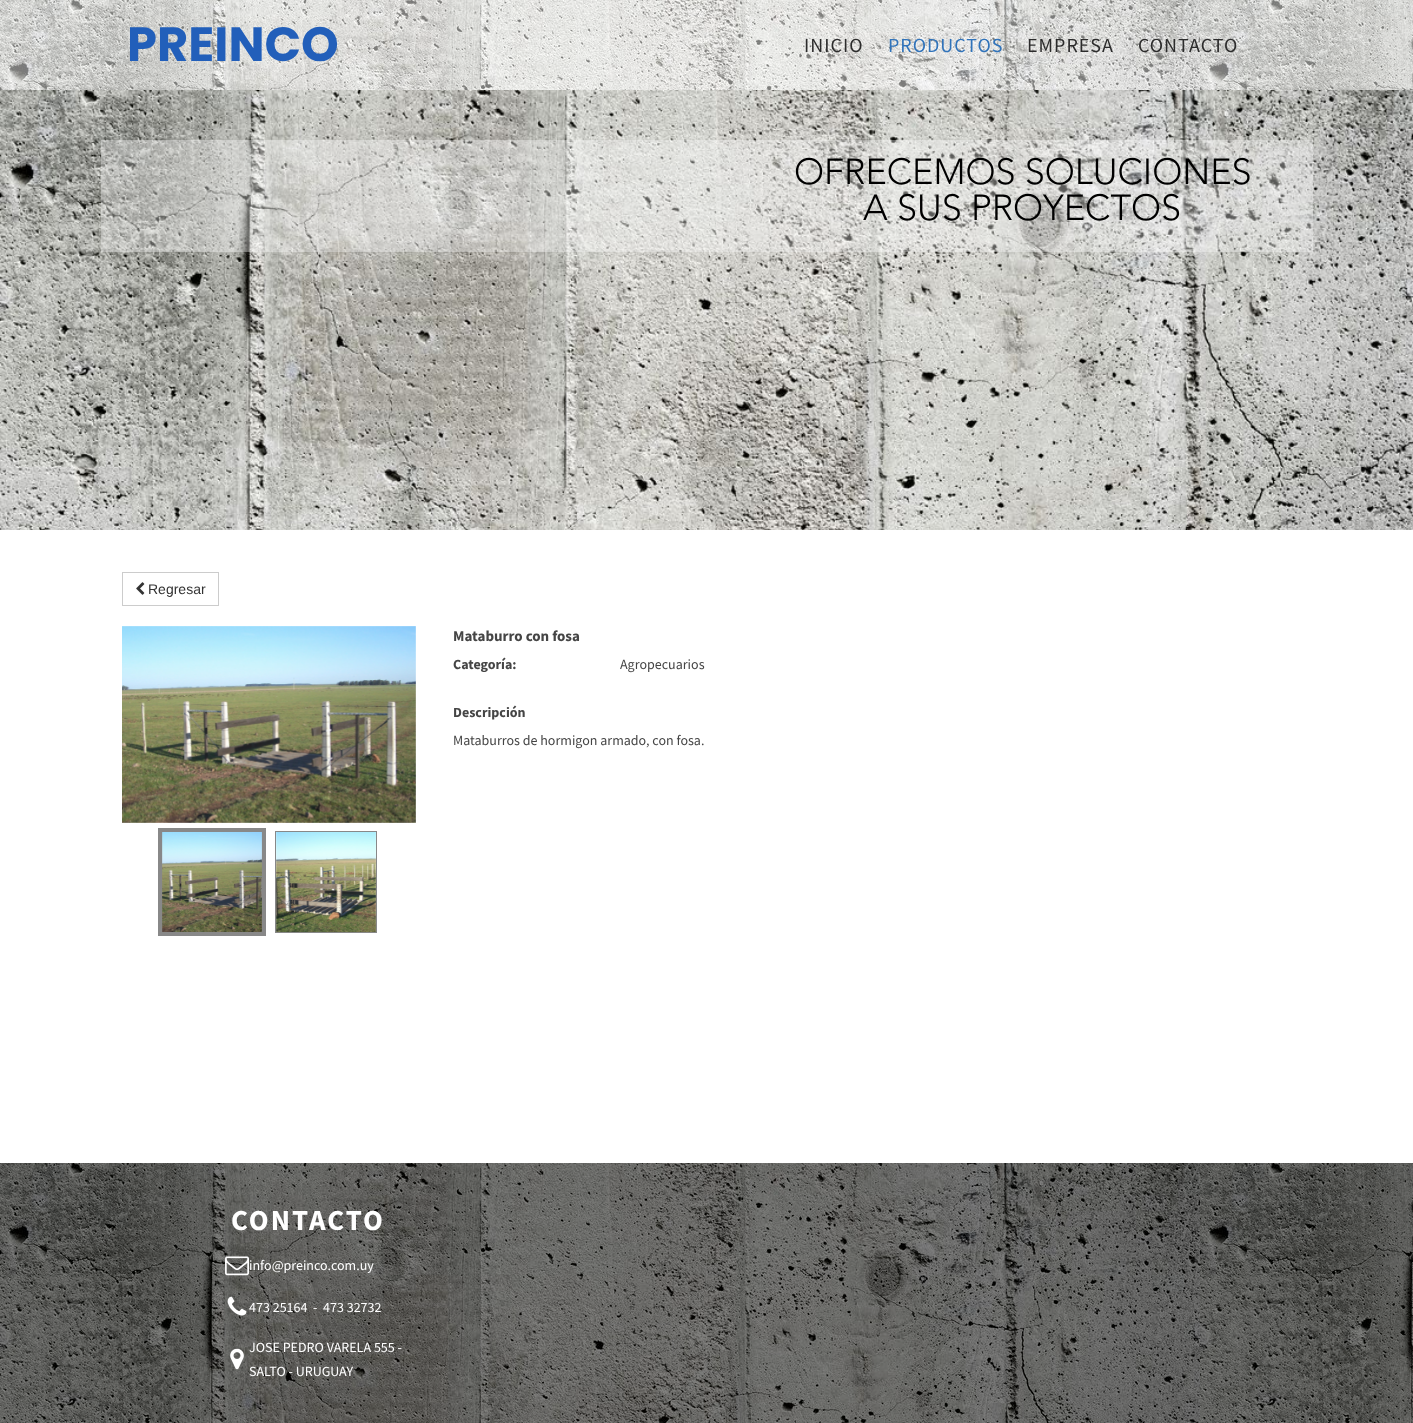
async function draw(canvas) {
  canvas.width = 1413
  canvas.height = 1423
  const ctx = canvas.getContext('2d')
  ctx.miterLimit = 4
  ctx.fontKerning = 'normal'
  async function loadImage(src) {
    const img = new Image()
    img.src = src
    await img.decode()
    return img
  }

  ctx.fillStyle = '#fff'
  ctx.fillRect(0, 0, 1413, 1423)
  ctx.drawImage(await loadImage('image0.png'), 0, 0, 1413, 90)
  ctx.font = 'bold 48px Poppins'
  ctx.fillStyle = '#225fba'
  ctx.fillText('PREINCO', 127, 61)
  ctx.letterSpacing = '1px'
  ctx.font = '20px Source Sans Pro'
  ctx.fillStyle = '#2c2c2c'
  ctx.fillText('INICIO', 804, 52)
  ctx.fillStyle = '#3073ba'
  ctx.fillText('PRODUCTOS', 888, 52)
  ctx.fillStyle = '#2c2c2c'
  ctx.fillText('EMPRESA', 1027, 52)
  ctx.fillText('CONTACTO', 1138, 52)
  ctx.drawImage(await loadImage('image1.png'), 0, 90, 1413, 440)
  ctx.fillStyle = '#ffffff59'
  ctx.fillRect(101, 140, 1212, 112)
  ctx.letterSpacing = '0px'
  ctx.font = '300 36px Avenir'
  ctx.fillStyle = '#000'
  ctx.fillText('OFRECEMOS SOLUCIONES', 794, 184)
  ctx.fillText('A SUS PROYECTOS', 863, 220)
  ctx.strokeStyle = '#ccc'
  ctx.strokeRect(122.5, 572.5, 96, 33)
  ctx.drawImage(await loadImage('image2.png'), 136, 582, 9, 13)
  ctx.font = '14px Liberation Sans'
  ctx.fillStyle = '#333'
  ctx.fillText('Regresar', 148, 594)
  ctx.drawImage(await loadImage('image3.png'), 122, 626, 294, 197)
  ctx.fillStyle = '#888'
  ctx.fillRect(158, 828, 108, 108)
  ctx.drawImage(await loadImage('image4.png'), 162, 832, 100, 100)
  ctx.strokeStyle = '#888'
  ctx.strokeRect(275.5, 831.5, 101, 101)
  ctx.drawImage(await loadImage('image5.png'), 276, 832, 100, 100)
  ctx.font = 'bold 15px Source Sans Pro'
  ctx.fillStyle = '#454545'
  ctx.fillText('Mataburro con fosa', 453, 641)
  ctx.font = 'bold 14px Source Sans Pro'
  ctx.fillText('Categoría:', 453, 669)
  ctx.font = '14px Source Sans Pro'
  ctx.fillText('Agropecuarios', 620, 669)
  ctx.font = 'bold 14px Source Sans Pro'
  ctx.fillText('Descripción', 453, 717)
  ctx.font = '14px Source Sans Pro'
  ctx.fillText('Mataburros de hormigon armado, con fosa.', 453, 745)
  ctx.drawImage(await loadImage('image6.png'), 0, 1163, 1413, 260)
  ctx.letterSpacing = '2px'
  ctx.font = 'bold 29px Source Sans Pro'
  ctx.fillStyle = '#fff'
  ctx.fillText('CONTACTO', 231, 1230)
  ctx.drawImage(await loadImage('image7.png'), 225, 1256, 24, 20)
  ctx.letterSpacing = '0px'
  ctx.font = '14px Source Sans Pro'
  ctx.fillText('info@preinco.com.uy', 249, 1270)
  ctx.drawImage(await loadImage('image8.png'), 227, 1296, 20, 20)
  ctx.fillText('473 25164  -  473 32732', 249, 1312)
  ctx.drawImage(await loadImage('image9.png'), 230, 1348, 14, 22)
  ctx.fillText('JOSE PEDRO VARELA 555 -', 249, 1352)
  ctx.fillText('SALTO - URUGUAY', 249, 1376)
}

draw(document.querySelector('canvas'))
